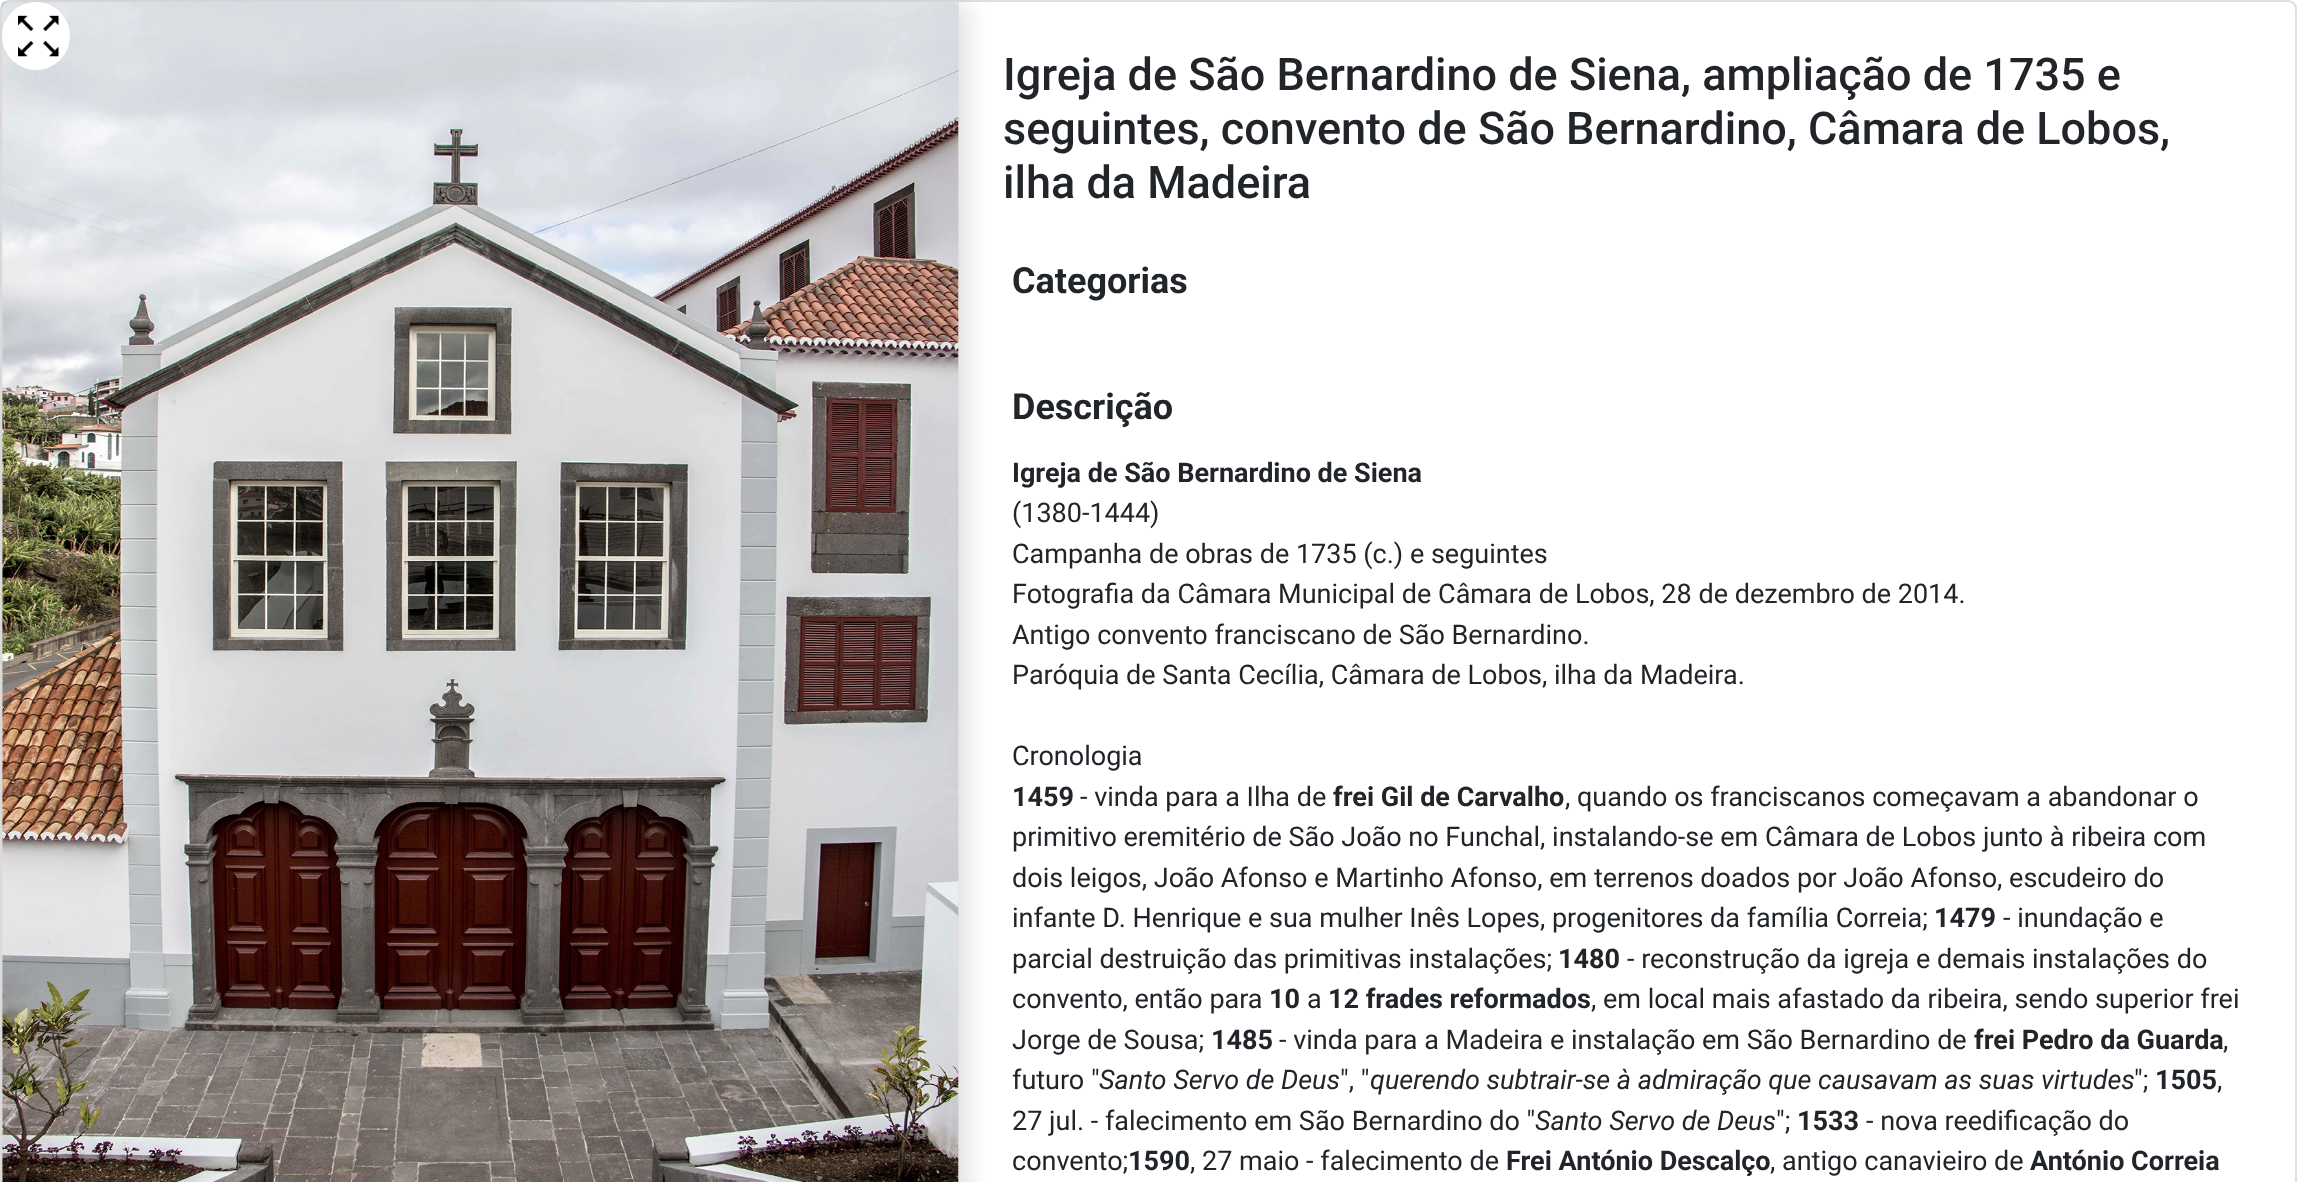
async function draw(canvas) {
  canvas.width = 2297
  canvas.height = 1182
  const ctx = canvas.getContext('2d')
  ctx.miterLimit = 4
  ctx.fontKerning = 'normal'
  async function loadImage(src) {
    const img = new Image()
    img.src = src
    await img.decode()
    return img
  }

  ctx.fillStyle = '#fff'
  ctx.fillRect(0, 0, 2297, 1182)
  ctx.beginPath()
  ctx.roundRect(1, 1, 2295, 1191, 8)
  ctx.strokeStyle = '#dfdfdf'
  ctx.lineWidth = 2
  ctx.stroke()
  ctx.save()
  ctx.beginPath()
  ctx.moveTo(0, 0)
  ctx.lineTo(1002, 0)
  ctx.lineTo(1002, 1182)
  ctx.lineTo(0, 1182)
  ctx.closePath()
  ctx.moveTo(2, 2)
  ctx.lineTo(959, 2)
  ctx.lineTo(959, 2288)
  ctx.lineTo(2, 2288)
  ctx.closePath()
  ctx.clip('evenodd')
  ctx.fillStyle = '#0000001f'
  ctx.filter = 'blur(11px)'
  ctx.beginPath()
  ctx.rect(11, 5, 957, 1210)
  ctx.fill()
  ctx.filter = 'none'
  ctx.restore()
  ctx.fillStyle = '#0000001f'
  ctx.fillRect(2, 2, 957, 1180)
  ctx.drawImage(await loadImage('image0.png'), 2, 2, 957, 1180)
  ctx.fillStyle = '#fff'
  ctx.beginPath()
  ctx.arc(36, 36, 34, 0, 2 * Math.PI)
  ctx.fill()
  ctx.drawImage(await loadImage('image1.png'), 18, 15, 41, 42)
  ctx.font = '500 45px Roboto'
  ctx.fillStyle = '#212529'
  ctx.fillText('Igreja de São Bernardino de Siena, ampliação de 1735 e', 1003, 90)
  ctx.fillText('seguintes, convento de São Bernardino, Câmara de Lobos,', 1003, 144)
  ctx.fillText('ilha da Madeira', 1003, 198)
  ctx.font = 'bold 36px Roboto'
  ctx.fillText('Categorias', 1012, 293)
  ctx.fillText('Descrição', 1012, 419)
  ctx.font = 'bold 27px Roboto'
  ctx.fillText('Igreja de São Bernardino de Siena', 1012, 482)
  ctx.font = '27px Roboto'
  ctx.fillText('(1380-1444)', 1012, 522)
  ctx.fillText('Campanha de obras de 1735 (c.) e seguintes', 1012, 563)
  ctx.fillText('Fotografia da Câmara Municipal de Câmara de Lobos, 28 de dezembro de 2014.', 1012, 603)
  ctx.fillText('Antigo convento franciscano de São Bernardino.', 1012, 644)
  ctx.fillText('Paróquia de Santa Cecília, Câmara de Lobos, ilha da Madeira.', 1012, 684)
  ctx.fillText('Cronologia', 1012, 765)
  ctx.font = 'bold 27px Roboto'
  ctx.fillText('1459', 1012, 806)
  ctx.font = '27px Roboto'
  ctx.fillText('- vinda para a Ilha de', 1080, 806)
  ctx.font = 'bold 27px Roboto'
  ctx.fillText('frei Gil de Carvalho', 1333, 806)
  ctx.font = '27px Roboto'
  ctx.fillText(', quando os franciscanos começavam a abandonar o', 1565, 806)
  ctx.fillText('primitivo eremitério de São João no Funchal, instalando-se em Câmara de Lobos junto à ribeira com', 1012, 846)
  ctx.fillText('dois leigos, João Afonso e Martinho Afonso, em terrenos doados por João Afonso, escudeiro do', 1012, 887)
  ctx.fillText('infante D. Henrique e sua mulher Inês Lopes, progenitores da família Correia;', 1012, 927)
  ctx.font = 'bold 27px Roboto'
  ctx.fillText('1479', 1934, 927)
  ctx.font = '27px Roboto'
  ctx.fillText('- inundação e', 2003, 927)
  ctx.fillText('parcial destruição das primitivas instalações;', 1012, 968)
  ctx.font = 'bold 27px Roboto'
  ctx.fillText('1480', 1558, 968)
  ctx.font = '27px Roboto'
  ctx.fillText('- reconstrução da igreja e demais instalações do', 1627, 968)
  ctx.fillText('convento, então para', 1012, 1008)
  ctx.font = 'bold 27px Roboto'
  ctx.fillText('10', 1269, 1008)
  ctx.font = '27px Roboto'
  ctx.fillText('a', 1307, 1008)
  ctx.font = 'bold 27px Roboto'
  ctx.fillText('12 frades reformados', 1328, 1008)
  ctx.font = '27px Roboto'
  ctx.fillText(', em local mais afastado da ribeira, sendo superior frei', 1591, 1008)
  ctx.fillText('Jorge de Sousa;', 1012, 1049)
  ctx.font = 'bold 27px Roboto'
  ctx.fillText('1485', 1211, 1049)
  ctx.font = '27px Roboto'
  ctx.fillText('- vinda para a Madeira e instalação em São Bernardino de', 1279, 1049)
  ctx.font = 'bold 27px Roboto'
  ctx.fillText('frei Pedro da Guarda', 1974, 1049)
  ctx.font = '27px Roboto'
  ctx.fillText(',', 2223, 1049)
  ctx.fillText('futuro "', 1012, 1089)
  ctx.font = 'italic 27px Roboto'
  ctx.fillText('Santo Servo de Deus', 1099, 1089)
  ctx.font = '27px Roboto'
  ctx.fillText('", "', 1340, 1089)
  ctx.font = 'italic 27px Roboto'
  ctx.fillText('querendo subtrair-se à admiração que causavam as suas virtudes', 1370, 1089)
  ctx.font = '27px Roboto'
  ctx.fillText('";', 2134, 1089)
  ctx.font = 'bold 27px Roboto'
  ctx.fillText('1505', 2155, 1089)
  ctx.font = '27px Roboto'
  ctx.fillText(',', 2217, 1089)
  ctx.fillText('27 jul. - falecimento em São Bernardino do "', 1012, 1130)
  ctx.font = 'italic 27px Roboto'
  ctx.fillText('Santo Servo de Deus', 1535, 1130)
  ctx.font = '27px Roboto'
  ctx.fillText('";', 1776, 1130)
  ctx.font = 'bold 27px Roboto'
  ctx.fillText('1533', 1797, 1130)
  ctx.font = '27px Roboto'
  ctx.fillText('- nova reedificação do', 1866, 1130)
  ctx.fillText('convento;', 1012, 1170)
  ctx.font = 'bold 27px Roboto'
  ctx.fillText('1590', 1128, 1170)
  ctx.font = '27px Roboto'
  ctx.fillText(', 27 maio - falecimento de', 1190, 1170)
  ctx.font = 'bold 27px Roboto'
  ctx.fillText('Frei António Descalço', 1506, 1170)
  ctx.font = '27px Roboto'
  ctx.fillText(', antigo canavieiro de', 1770, 1170)
  ctx.font = 'bold 27px Roboto'
  ctx.fillText('António Correia', 2030, 1170)
}

draw(document.querySelector('canvas'))
